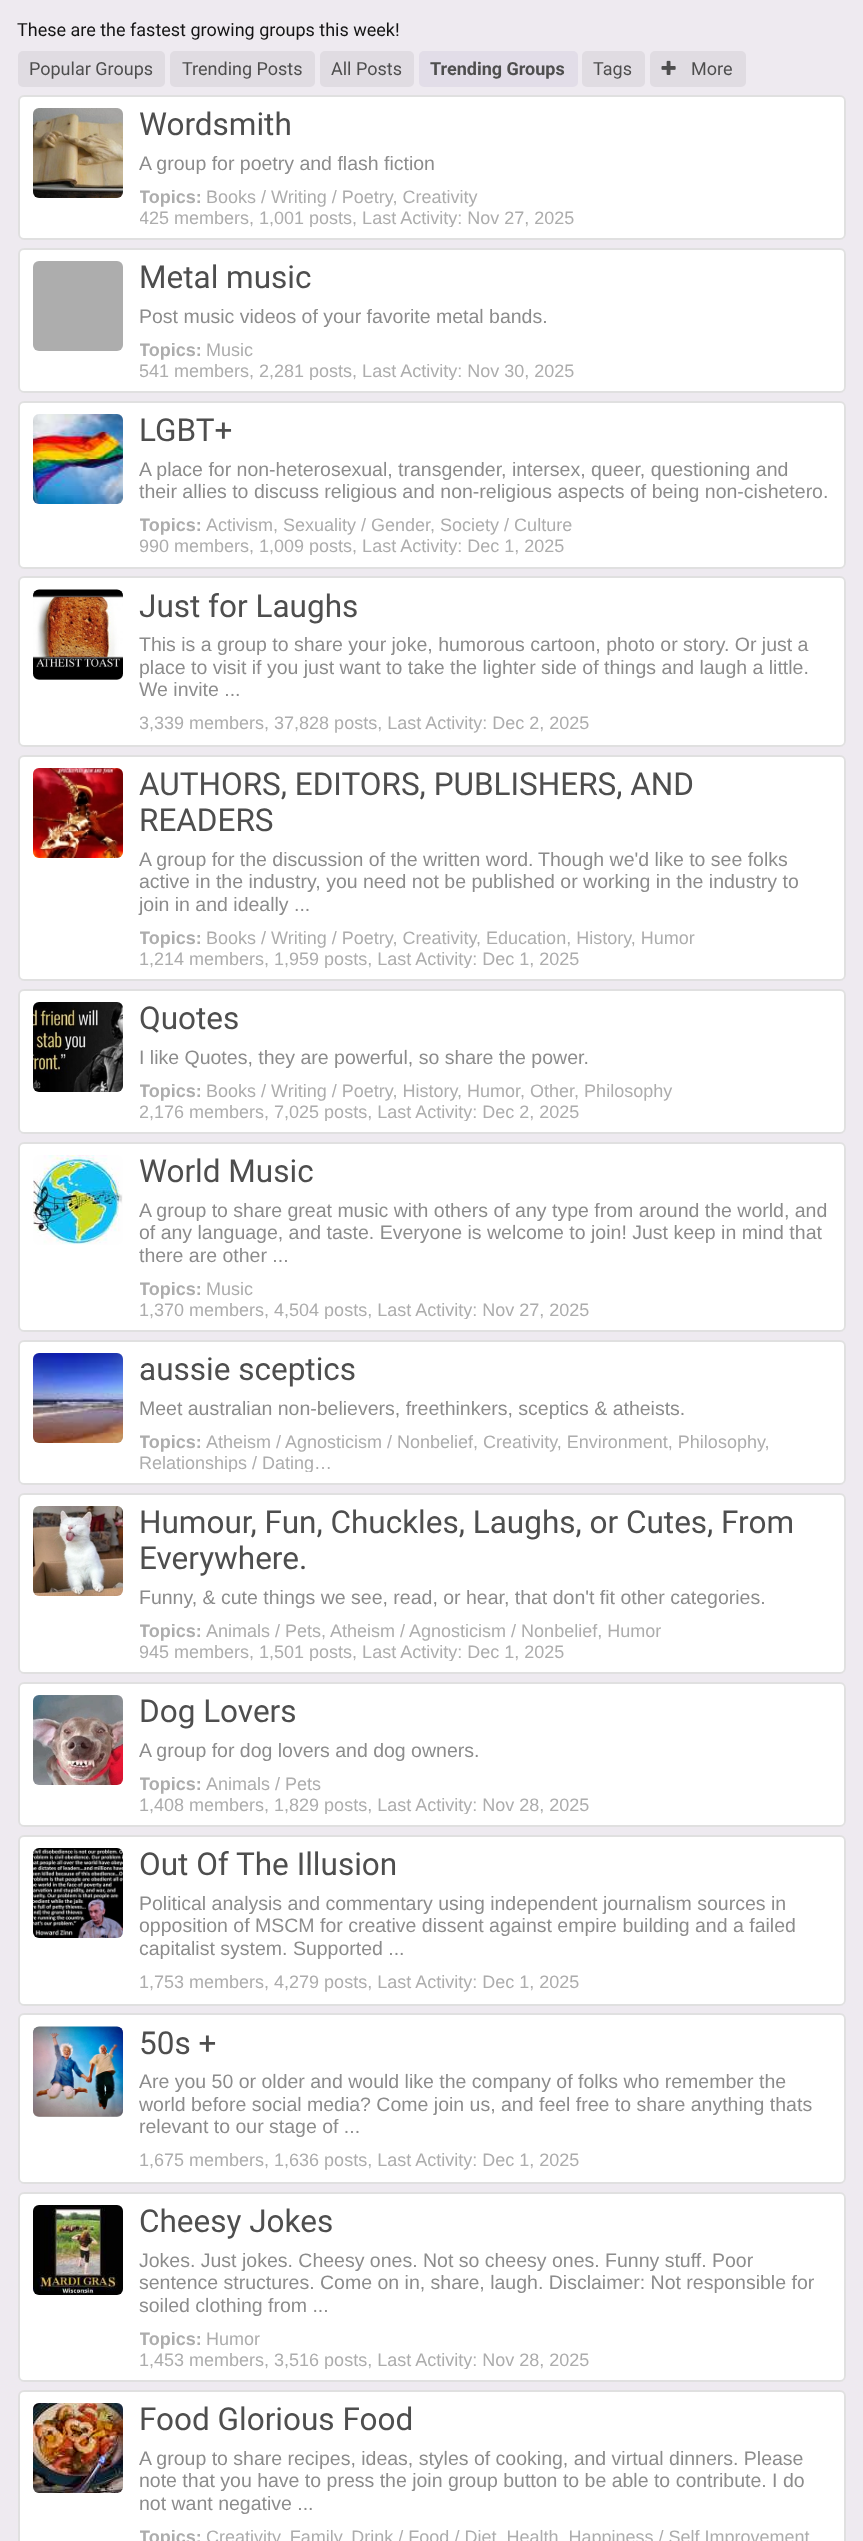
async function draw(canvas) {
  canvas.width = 863
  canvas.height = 2541
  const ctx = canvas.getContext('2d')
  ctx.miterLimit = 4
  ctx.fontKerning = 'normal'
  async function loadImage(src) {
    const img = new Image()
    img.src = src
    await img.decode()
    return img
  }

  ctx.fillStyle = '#eeeaf0'
  ctx.fillRect(0, 0, 863, 2541)
  ctx.font = '18px Roboto'
  ctx.fillStyle = '#141414'
  ctx.fillText('These are the fastest growing groups this week!', 17, 36)
  ctx.fillStyle = '#e0dce2'
  ctx.beginPath()
  ctx.roundRect(18, 51, 147, 36, 5)
  ctx.fill()
  ctx.fillStyle = '#4e4e4e'
  ctx.fillText('Popular Groups', 29, 75)
  ctx.fillStyle = '#e0dce2'
  ctx.beginPath()
  ctx.roundRect(170, 51, 145, 36, 5)
  ctx.fill()
  ctx.fillStyle = '#4e4e4e'
  ctx.fillText('Trending Posts', 182, 75)
  ctx.fillStyle = '#e0dce2'
  ctx.beginPath()
  ctx.roundRect(320, 51, 94, 36, 5)
  ctx.fill()
  ctx.fillStyle = '#4e4e4e'
  ctx.fillText('All Posts', 331, 75)
  ctx.fillStyle = '#e2dde8'
  ctx.beginPath()
  ctx.roundRect(419, 51, 159, 36, 5)
  ctx.fill()
  ctx.font = 'bold 18px Roboto'
  ctx.fillStyle = '#4e4e4e'
  ctx.fillText('Trending Groups', 430, 75)
  ctx.fillStyle = '#e0dce2'
  ctx.beginPath()
  ctx.roundRect(582, 51, 63, 36, 5)
  ctx.fill()
  ctx.font = '18px Roboto'
  ctx.fillStyle = '#4e4e4e'
  ctx.fillText('Tags', 593, 75)
  ctx.fillStyle = '#e0dce2'
  ctx.beginPath()
  ctx.roundRect(650, 51, 96, 36, 5)
  ctx.fill()
  ctx.drawImage(await loadImage('image0.png'), 661, 60, 15, 15)
  ctx.fillStyle = '#4e4e4e'
  ctx.fillText('More', 691, 75)
  ctx.fillStyle = '#fff'
  ctx.beginPath()
  ctx.roundRect(18, 95, 828, 145, 6)
  ctx.fill()
  ctx.beginPath()
  ctx.roundRect(19, 96, 826, 143, 5)
  ctx.strokeStyle = '#0000001f'
  ctx.lineWidth = 2
  ctx.stroke()
  ctx.drawImage(await loadImage('image1.png'), 33, 108, 90, 90)
  ctx.font = '31.5px Roboto'
  ctx.fillStyle = '#4e4e4e'
  ctx.fillText('Wordsmith', 139, 135)
  ctx.font = '19.5px Liberation Sans'
  ctx.fillStyle = '#8c8c8c'
  ctx.fillText('A group for poetry and flash fiction', 139, 170)
  ctx.save()
  ctx.beginPath()
  ctx.rect(140, 186, 690, 41)
  ctx.clip()
  ctx.font = 'bold 18px Liberation Sans'
  ctx.fillStyle = '#adadad'
  ctx.fillText('Topics:', 139, 203)
  ctx.restore()
  ctx.font = '18px Liberation Sans'
  ctx.fillStyle = '#adadad'
  ctx.fillText('Books / Writing / Poetry, Creativity', 206, 203)
  ctx.save()
  ctx.beginPath()
  ctx.rect(140, 186, 690, 41)
  ctx.clip()
  ctx.fillText('425 members, 1,001 posts, Last Activity: Nov 27, 2025', 139, 224)
  ctx.restore()
  ctx.fillStyle = '#fff'
  ctx.beginPath()
  ctx.roundRect(18, 248, 828, 145, 6)
  ctx.fill()
  ctx.beginPath()
  ctx.roundRect(19, 249, 826, 143, 5)
  ctx.stroke()
  ctx.fillStyle = '#adadad'
  ctx.beginPath()
  ctx.roundRect(33, 261, 90, 90, 6)
  ctx.fill()
  ctx.font = '31.5px Roboto'
  ctx.fillStyle = '#4e4e4e'
  ctx.fillText('Metal music', 139, 288)
  ctx.font = '19.5px Liberation Sans'
  ctx.fillStyle = '#8c8c8c'
  ctx.fillText('Post music videos of your favorite metal bands.', 139, 323)
  ctx.save()
  ctx.beginPath()
  ctx.rect(140, 339, 690, 41)
  ctx.clip()
  ctx.font = 'bold 18px Liberation Sans'
  ctx.fillStyle = '#adadad'
  ctx.fillText('Topics:', 139, 356)
  ctx.restore()
  ctx.font = '18px Liberation Sans'
  ctx.fillStyle = '#adadad'
  ctx.fillText('Music', 206, 356)
  ctx.save()
  ctx.beginPath()
  ctx.rect(140, 339, 690, 41)
  ctx.clip()
  ctx.fillText('541 members, 2,281 posts, Last Activity: Nov 30, 2025', 139, 377)
  ctx.restore()
  ctx.fillStyle = '#fff'
  ctx.beginPath()
  ctx.roundRect(18, 401, 828, 168, 6)
  ctx.fill()
  ctx.beginPath()
  ctx.roundRect(19, 402, 826, 166, 5)
  ctx.stroke()
  ctx.drawImage(await loadImage('image2.png'), 33, 414, 90, 90)
  ctx.font = '31.5px Roboto'
  ctx.fillStyle = '#4e4e4e'
  ctx.fillText('LGBT+', 139, 441)
  ctx.font = '19.5px Liberation Sans'
  ctx.fillStyle = '#8c8c8c'
  ctx.fillText('A place for non-heterosexual, transgender, intersex, queer, questioning and', 139, 476)
  ctx.fillText('their allies to discuss religious and non-religious aspects of being non-cishetero.', 139, 498)
  ctx.save()
  ctx.beginPath()
  ctx.rect(140, 515, 690, 40)
  ctx.clip()
  ctx.font = 'bold 18px Liberation Sans'
  ctx.fillStyle = '#adadad'
  ctx.fillText('Topics:', 139, 531)
  ctx.restore()
  ctx.font = '18px Liberation Sans'
  ctx.fillStyle = '#adadad'
  ctx.fillText('Activism, Sexuality / Gender, Society / Culture', 206, 531)
  ctx.save()
  ctx.beginPath()
  ctx.rect(140, 515, 690, 40)
  ctx.clip()
  ctx.fillText('990 members, 1,009 posts, Last Activity: Dec 1, 2025', 139, 552)
  ctx.restore()
  ctx.fillStyle = '#fff'
  ctx.beginPath()
  ctx.roundRect(18, 576, 828, 171, 6)
  ctx.fill()
  ctx.beginPath()
  ctx.roundRect(19, 577, 826, 169, 5)
  ctx.stroke()
  ctx.fillStyle = '#adadad'
  ctx.beginPath()
  ctx.roundRect(33, 590, 90, 90, 6)
  ctx.fill()
  ctx.drawImage(await loadImage('image3.png'), 32, 589, 91, 91)
  ctx.font = '31.5px Roboto'
  ctx.fillStyle = '#4e4e4e'
  ctx.fillText('Just for Laughs', 139, 617)
  ctx.font = '19.5px Liberation Sans'
  ctx.fillStyle = '#8c8c8c'
  ctx.fillText('This is a group to share your joke, humorous cartoon, photo or story. Or just a', 139, 651)
  ctx.fillText('place to visit if you just want to take the lighter side of things and laugh a little.', 139, 674)
  ctx.fillText('We invite ...', 139, 696)
  ctx.save()
  ctx.beginPath()
  ctx.rect(140, 713, 690, 21)
  ctx.clip()
  ctx.font = '18px Liberation Sans'
  ctx.fillStyle = '#adadad'
  ctx.fillText('3,339 members, 37,828 posts, Last Activity: Dec 2, 2025', 139, 729)
  ctx.restore()
  ctx.fillStyle = '#fff'
  ctx.beginPath()
  ctx.roundRect(18, 755, 828, 226, 6)
  ctx.fill()
  ctx.beginPath()
  ctx.roundRect(19, 756, 826, 224, 5)
  ctx.stroke()
  ctx.drawImage(await loadImage('image4.png'), 33, 768, 90, 90)
  ctx.font = '31.5px Roboto'
  ctx.fillStyle = '#4e4e4e'
  ctx.fillText('AUTHORS, EDITORS, PUBLISHERS, AND', 139, 795)
  ctx.fillText('READERS', 139, 831)
  ctx.font = '19.5px Liberation Sans'
  ctx.fillStyle = '#8c8c8c'
  ctx.fillText('A group for the discussion of the written word.', 139, 866)
  ctx.fillText('Though we\'d like to see folks', 538, 866)
  ctx.fillText('active in the industry, you need not be published or working in the industry to', 139, 888)
  ctx.fillText('join in and ideally ...', 139, 911)
  ctx.save()
  ctx.beginPath()
  ctx.rect(140, 927, 690, 41)
  ctx.clip()
  ctx.font = 'bold 18px Liberation Sans'
  ctx.fillStyle = '#adadad'
  ctx.fillText('Topics:', 139, 944)
  ctx.restore()
  ctx.font = '18px Liberation Sans'
  ctx.fillStyle = '#adadad'
  ctx.fillText('Books / Writing / Poetry, Creativity, Education, History, Humor', 206, 944)
  ctx.save()
  ctx.beginPath()
  ctx.rect(140, 927, 690, 41)
  ctx.clip()
  ctx.fillText('1,214 members, 1,959 posts, Last Activity: Dec 1, 2025', 139, 965)
  ctx.restore()
  ctx.fillStyle = '#fff'
  ctx.beginPath()
  ctx.roundRect(18, 989, 828, 145, 6)
  ctx.fill()
  ctx.beginPath()
  ctx.roundRect(19, 990, 826, 143, 5)
  ctx.stroke()
  ctx.drawImage(await loadImage('image5.png'), 33, 1002, 90, 90)
  ctx.font = '31.5px Roboto'
  ctx.fillStyle = '#4e4e4e'
  ctx.fillText('Quotes', 139, 1029)
  ctx.font = '19.5px Liberation Sans'
  ctx.fillStyle = '#8c8c8c'
  ctx.fillText('I like Quotes, they are powerful, so share the power.', 139, 1064)
  ctx.save()
  ctx.beginPath()
  ctx.rect(140, 1080, 690, 41)
  ctx.clip()
  ctx.font = 'bold 18px Liberation Sans'
  ctx.fillStyle = '#adadad'
  ctx.fillText('Topics:', 139, 1097)
  ctx.restore()
  ctx.font = '18px Liberation Sans'
  ctx.fillStyle = '#adadad'
  ctx.fillText('Books / Writing / Poetry, History, Humor, Other, Philosophy', 206, 1097)
  ctx.save()
  ctx.beginPath()
  ctx.rect(140, 1080, 690, 41)
  ctx.clip()
  ctx.fillText('2,176 members, 7,025 posts, Last Activity: Dec 2, 2025', 139, 1118)
  ctx.restore()
  ctx.fillStyle = '#fff'
  ctx.beginPath()
  ctx.roundRect(18, 1142, 828, 190, 6)
  ctx.fill()
  ctx.beginPath()
  ctx.roundRect(19, 1143, 826, 188, 5)
  ctx.stroke()
  ctx.drawImage(await loadImage('image6.png'), 33, 1155, 90, 90)
  ctx.font = '31.5px Roboto'
  ctx.fillStyle = '#4e4e4e'
  ctx.fillText('World Music', 139, 1182)
  ctx.font = '19.5px Liberation Sans'
  ctx.fillStyle = '#8c8c8c'
  ctx.fillText('A group to share great music with others of any type from around the world, and', 139, 1217)
  ctx.fillText('of any language, and taste. Everyone is welcome to join! Just keep in mind that', 139, 1239)
  ctx.fillText('there are other ...', 139, 1262)
  ctx.save()
  ctx.beginPath()
  ctx.rect(140, 1278, 690, 41)
  ctx.clip()
  ctx.font = 'bold 18px Liberation Sans'
  ctx.fillStyle = '#adadad'
  ctx.fillText('Topics:', 139, 1295)
  ctx.restore()
  ctx.font = '18px Liberation Sans'
  ctx.fillStyle = '#adadad'
  ctx.fillText('Music', 206, 1295)
  ctx.save()
  ctx.beginPath()
  ctx.rect(140, 1278, 690, 41)
  ctx.clip()
  ctx.fillText('1,370 members, 4,504 posts, Last Activity: Nov 27, 2025', 139, 1316)
  ctx.restore()
  ctx.fillStyle = '#fff'
  ctx.beginPath()
  ctx.roundRect(18, 1340, 828, 145, 6)
  ctx.fill()
  ctx.beginPath()
  ctx.roundRect(19, 1341, 826, 143, 5)
  ctx.stroke()
  ctx.drawImage(await loadImage('image7.png'), 33, 1353, 90, 90)
  ctx.font = '31.5px Roboto'
  ctx.fillStyle = '#4e4e4e'
  ctx.fillText('aussie sceptics', 139, 1380)
  ctx.font = '19.5px Liberation Sans'
  ctx.fillStyle = '#8c8c8c'
  ctx.fillText('Meet australian non-believers, freethinkers, sceptics & atheists.', 139, 1415)
  ctx.save()
  ctx.beginPath()
  ctx.rect(140, 1431, 690, 41)
  ctx.clip()
  ctx.font = 'bold 18px Liberation Sans'
  ctx.fillStyle = '#adadad'
  ctx.fillText('Topics:', 139, 1448)
  ctx.restore()
  ctx.font = '18px Liberation Sans'
  ctx.fillStyle = '#adadad'
  ctx.fillText('Atheism / Agnosticism / Nonbelief, Creativity, Environment, Philosophy,', 206, 1448)
  ctx.save()
  ctx.beginPath()
  ctx.rect(140, 1431, 690, 41)
  ctx.clip()
  ctx.fillText('Relationships / Dating…', 139, 1469)
  ctx.restore()
  ctx.fillStyle = '#fff'
  ctx.beginPath()
  ctx.roundRect(18, 1493, 828, 181, 6)
  ctx.fill()
  ctx.beginPath()
  ctx.roundRect(19, 1494, 826, 179, 5)
  ctx.stroke()
  ctx.drawImage(await loadImage('image8.png'), 33, 1506, 90, 90)
  ctx.font = '31.5px Roboto'
  ctx.fillStyle = '#4e4e4e'
  ctx.fillText('Humour, Fun, Chuckles, Laughs, or Cutes, From', 139, 1533)
  ctx.fillText('Everywhere.', 139, 1569)
  ctx.font = '19.5px Liberation Sans'
  ctx.fillStyle = '#8c8c8c'
  ctx.fillText('Funny, & cute things we see, read, or hear, that don\'t fit other categories.', 139, 1604)
  ctx.save()
  ctx.beginPath()
  ctx.rect(140, 1620, 690, 41)
  ctx.clip()
  ctx.font = 'bold 18px Liberation Sans'
  ctx.fillStyle = '#adadad'
  ctx.fillText('Topics:', 139, 1637)
  ctx.restore()
  ctx.font = '18px Liberation Sans'
  ctx.fillStyle = '#adadad'
  ctx.fillText('Animals / Pets, Atheism / Agnosticism / Nonbelief, Humor', 206, 1637)
  ctx.save()
  ctx.beginPath()
  ctx.rect(140, 1620, 690, 41)
  ctx.clip()
  ctx.fillText('945 members, 1,501 posts, Last Activity: Dec 1, 2025', 139, 1658)
  ctx.restore()
  ctx.fillStyle = '#fff'
  ctx.beginPath()
  ctx.roundRect(18, 1682, 828, 145, 6)
  ctx.fill()
  ctx.beginPath()
  ctx.roundRect(19, 1683, 826, 143, 5)
  ctx.stroke()
  ctx.drawImage(await loadImage('image9.png'), 33, 1695, 90, 90)
  ctx.font = '31.5px Roboto'
  ctx.fillStyle = '#4e4e4e'
  ctx.fillText('Dog Lovers', 139, 1722)
  ctx.font = '19.5px Liberation Sans'
  ctx.fillStyle = '#8c8c8c'
  ctx.fillText('A group for dog lovers and dog owners.', 139, 1757)
  ctx.save()
  ctx.beginPath()
  ctx.rect(140, 1773, 690, 41)
  ctx.clip()
  ctx.font = 'bold 18px Liberation Sans'
  ctx.fillStyle = '#adadad'
  ctx.fillText('Topics:', 139, 1790)
  ctx.restore()
  ctx.font = '18px Liberation Sans'
  ctx.fillStyle = '#adadad'
  ctx.fillText('Animals / Pets', 206, 1790)
  ctx.save()
  ctx.beginPath()
  ctx.rect(140, 1773, 690, 41)
  ctx.clip()
  ctx.fillText('1,408 members, 1,829 posts, Last Activity: Nov 28, 2025', 139, 1811)
  ctx.restore()
  ctx.fillStyle = '#fff'
  ctx.beginPath()
  ctx.roundRect(18, 1835, 828, 171, 6)
  ctx.fill()
  ctx.beginPath()
  ctx.roundRect(19, 1836, 826, 169, 5)
  ctx.stroke()
  ctx.drawImage(await loadImage('image10.png'), 33, 1848, 90, 90)
  ctx.font = '31.5px Roboto'
  ctx.fillStyle = '#4e4e4e'
  ctx.fillText('Out Of The Illusion', 139, 1875)
  ctx.font = '19.5px Liberation Sans'
  ctx.fillStyle = '#8c8c8c'
  ctx.fillText('Political analysis and commentary using independent journalism sources in', 139, 1910)
  ctx.fillText('opposition of MSCM for creative dissent against empire building and a failed', 139, 1932)
  ctx.fillText('capitalist system. Supported ...', 139, 1955)
  ctx.font = '18px Liberation Sans'
  ctx.fillStyle = '#adadad'
  ctx.fillText('1,753 members, 4,279 posts, Last Activity: Dec 1, 2025', 139, 1988)
  ctx.fillStyle = '#fff'
  ctx.beginPath()
  ctx.roundRect(18, 2013, 828, 171, 6)
  ctx.fill()
  ctx.beginPath()
  ctx.roundRect(19, 2014, 826, 169, 5)
  ctx.stroke()
  ctx.fillStyle = '#adadad'
  ctx.beginPath()
  ctx.roundRect(33, 2027, 90, 90, 6)
  ctx.fill()
  ctx.drawImage(await loadImage('image11.png'), 32, 2026, 91, 91)
  ctx.font = '31.5px Roboto'
  ctx.fillStyle = '#4e4e4e'
  ctx.fillText('50s +', 139, 2054)
  ctx.font = '19.5px Liberation Sans'
  ctx.fillStyle = '#8c8c8c'
  ctx.fillText('Are you 50 or older and would like the company of folks who remember the', 139, 2088)
  ctx.fillText('world before social media? Come join us, and feel free to share anything thats', 139, 2111)
  ctx.fillText('relevant to our stage of ...', 139, 2133)
  ctx.font = '18px Liberation Sans'
  ctx.fillStyle = '#adadad'
  ctx.fillText('1,675 members, 1,636 posts, Last Activity: Dec 1, 2025', 139, 2166)
  ctx.fillStyle = '#fff'
  ctx.beginPath()
  ctx.roundRect(18, 2192, 828, 190, 6)
  ctx.fill()
  ctx.beginPath()
  ctx.roundRect(19, 2193, 826, 188, 5)
  ctx.stroke()
  ctx.drawImage(await loadImage('image12.png'), 33, 2205, 90, 90)
  ctx.font = '31.5px Roboto'
  ctx.fillStyle = '#4e4e4e'
  ctx.fillText('Cheesy Jokes', 139, 2232)
  ctx.font = '19.5px Liberation Sans'
  ctx.fillStyle = '#8c8c8c'
  ctx.fillText('Jokes. Just jokes. Cheesy ones. Not so cheesy ones. Funny stuff. Poor', 139, 2267)
  ctx.fillText('sentence structures. Come on in, share, laugh. Disclaimer: Not responsible for', 139, 2289)
  ctx.fillText('soiled clothing from ...', 139, 2312)
  ctx.save()
  ctx.beginPath()
  ctx.rect(140, 2328, 690, 41)
  ctx.clip()
  ctx.font = 'bold 18px Liberation Sans'
  ctx.fillStyle = '#adadad'
  ctx.fillText('Topics:', 139, 2345)
  ctx.restore()
  ctx.font = '18px Liberation Sans'
  ctx.fillStyle = '#adadad'
  ctx.fillText('Humor', 206, 2345)
  ctx.save()
  ctx.beginPath()
  ctx.rect(140, 2328, 690, 41)
  ctx.clip()
  ctx.fillText('1,453 members, 3,516 posts, Last Activity: Nov 28, 2025', 139, 2366)
  ctx.restore()
  ctx.fillStyle = '#fff'
  ctx.beginPath()
  ctx.roundRect(18, 2390, 828, 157, 6)
  ctx.fill()
  ctx.beginPath()
  ctx.roundRect(19, 2391, 826, 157, 5)
  ctx.stroke()
  ctx.drawImage(await loadImage('image13.png'), 33, 2403, 90, 90)
  ctx.font = '31.5px Roboto'
  ctx.fillStyle = '#4e4e4e'
  ctx.fillText('Food Glorious Food', 139, 2430)
  ctx.font = '19.5px Liberation Sans'
  ctx.fillStyle = '#8c8c8c'
  ctx.fillText('A group to share recipes, ideas, styles of cooking, and virtual dinners. Please', 139, 2465)
  ctx.fillText('note that you have to press the join group button to be able to contribute. I do', 139, 2487)
  ctx.fillText('not want negative ...', 139, 2510)
  ctx.save()
  ctx.beginPath()
  ctx.rect(140, 2526, 690, 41)
  ctx.clip()
  ctx.font = 'bold 18px Liberation Sans'
  ctx.fillStyle = '#adadad'
  ctx.fillText('Topics:', 139, 2543)
  ctx.restore()
  ctx.font = '18px Liberation Sans'
  ctx.fillStyle = '#adadad'
  ctx.fillText('Creativity, Family, Drink / Food / Diet, Health, Happiness / Self Improvement', 206, 2543)
}

draw(document.querySelector('canvas'))
